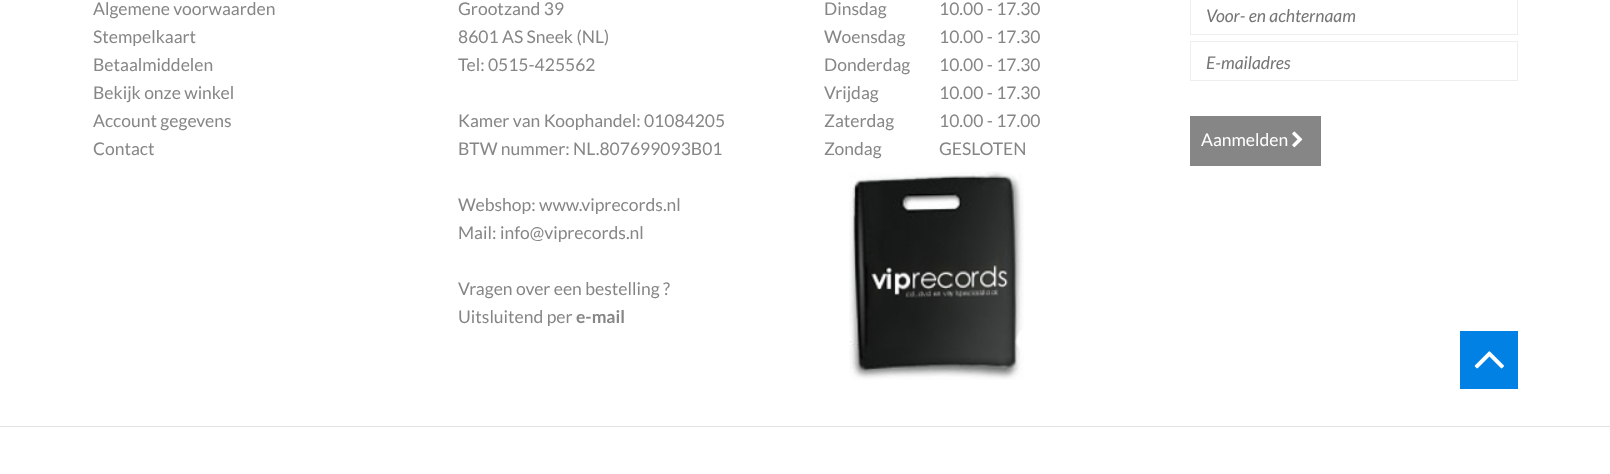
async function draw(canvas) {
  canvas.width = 1610
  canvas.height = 474
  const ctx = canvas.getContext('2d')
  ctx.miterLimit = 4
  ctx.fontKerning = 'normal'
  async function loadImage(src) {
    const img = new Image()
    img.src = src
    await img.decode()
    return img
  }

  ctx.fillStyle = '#fff'
  ctx.fillRect(0, 0, 1610, 474)
  ctx.font = '17.5px Lato'
  ctx.fillStyle = '#868686'
  ctx.fillText('Algemene voorwaarden', 93, 15)
  ctx.fillText('Stempelkaart', 93, 43)
  ctx.fillText('Betaalmiddelen', 93, 71)
  ctx.fillText('Bekijk onze winkel', 93, 99)
  ctx.fillText('Account gegevens', 93, 127)
  ctx.fillText('Contact', 93, 155)
  ctx.fillText('Grootzand 39', 458, 15)
  ctx.fillText('8601 AS Sneek (NL)', 458, 43)
  ctx.fillText('Tel: 0515-425562', 458, 71)
  ctx.fillText('Kamer van Koophandel: 01084205', 458, 127)
  ctx.fillText('BTW nummer: NL.807699093B01', 458, 155)
  ctx.fillText('Webshop:', 458, 211)
  ctx.fillText('www.viprecords.nl', 539, 211)
  ctx.fillText('Mail:', 458, 239)
  ctx.fillText('info@viprecords.nl', 500, 239)
  ctx.fillText('Vragen over een bestelling ?', 458, 295)
  ctx.fillText('Uitsluitend per', 458, 323)
  ctx.font = 'bold 17.5px Lato'
  ctx.fillText('e-mail', 576, 323)
  ctx.font = '17.5px Lato'
  ctx.fillText('Dinsdag', 824, 15)
  ctx.fillText('10.00 - 17.30', 939, 15)
  ctx.fillText('Woensdag', 824, 43)
  ctx.fillText('10.00 - 17.30', 939, 43)
  ctx.fillText('Donderdag', 824, 71)
  ctx.fillText('10.00 - 17.30', 939, 71)
  ctx.fillText('Vrijdag', 824, 99)
  ctx.fillText('10.00 - 17.30', 939, 99)
  ctx.fillText('Zaterdag', 824, 127)
  ctx.fillText('10.00 - 17.00', 939, 127)
  ctx.fillText('Zondag', 824, 155)
  ctx.fillText('GESLOTEN', 939, 155)
  ctx.drawImage(await loadImage('image0.png'), 849, 171, 175, 209)
  ctx.strokeStyle = '#eee'
  ctx.strokeRect(1190.5, -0.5, 327, 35)
  ctx.font = 'italic 17.5px Lato'
  ctx.fillStyle = '#757575'
  ctx.fillText('Voor- en achternaam', 1206, 22)
  ctx.strokeRect(1190.5, 41.5, 327, 39)
  ctx.fillText('E-mailadres', 1206, 69)
  ctx.fillStyle = '#868686'
  ctx.fillRect(1190, 116, 131, 50)
  ctx.font = '17.5px Lato'
  ctx.fillStyle = '#fff'
  ctx.fillText('Aanmelden', 1201, 146)
  ctx.drawImage(await loadImage('image1.png'), 1292, 131, 11, 17)
  ctx.fillStyle = '#0081e3'
  ctx.fillRect(1460, 331, 58, 58)
  ctx.drawImage(await loadImage('image2.png'), 1474, 351, 30, 18)
  ctx.fillStyle = '#e3e3e3'
  ctx.fillRect(0, 426, 1610, 1)
}

draw(document.querySelector('canvas'))
